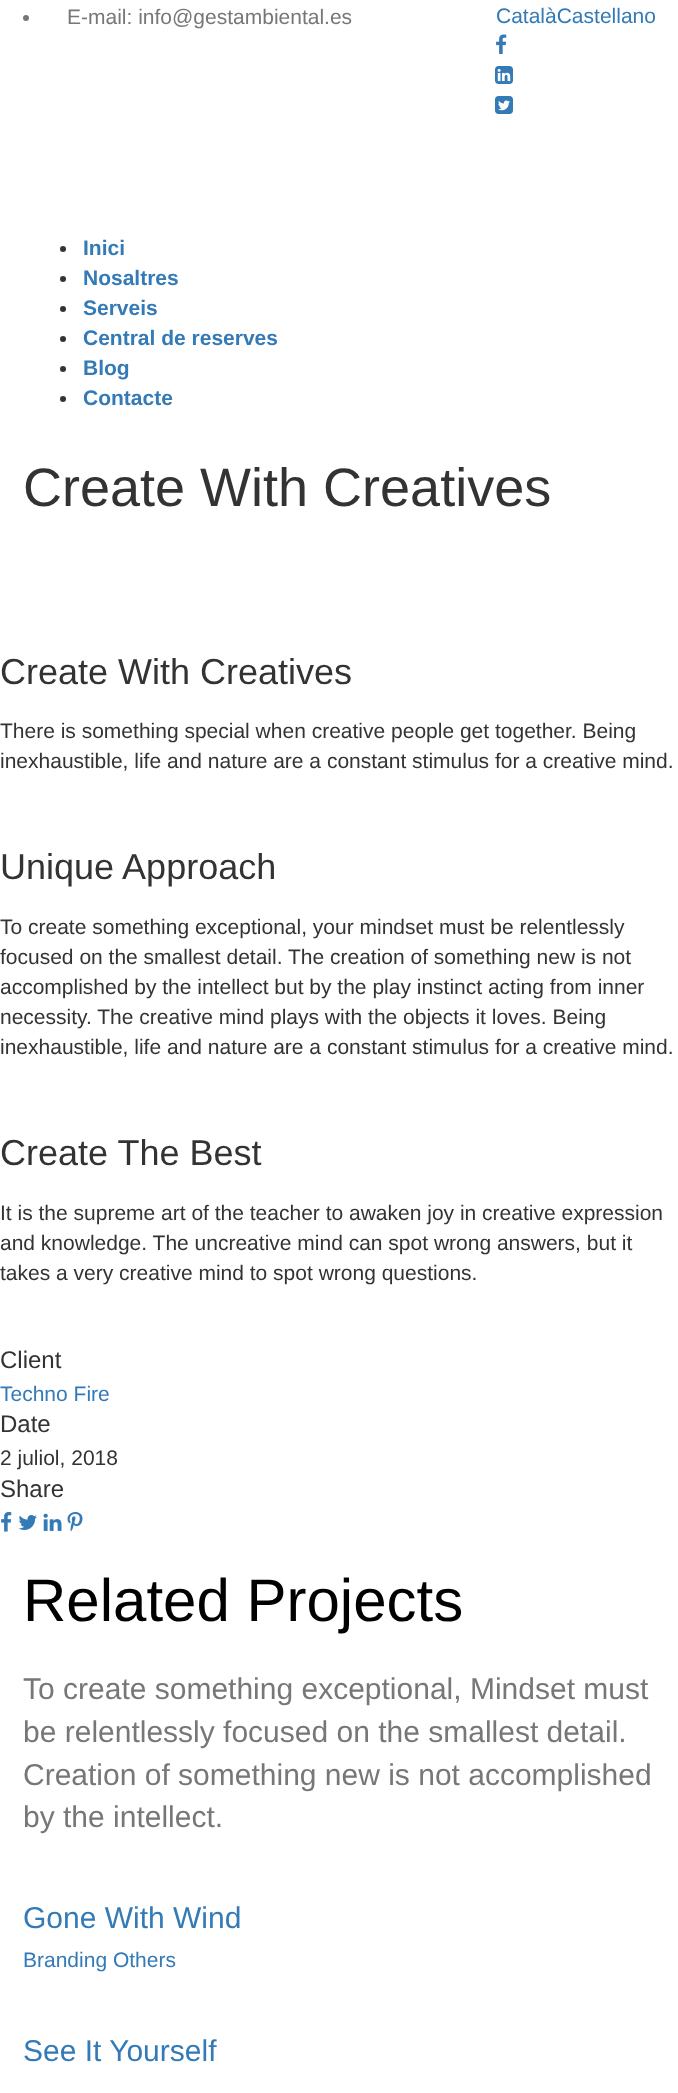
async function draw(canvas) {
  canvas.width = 678
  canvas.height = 2093
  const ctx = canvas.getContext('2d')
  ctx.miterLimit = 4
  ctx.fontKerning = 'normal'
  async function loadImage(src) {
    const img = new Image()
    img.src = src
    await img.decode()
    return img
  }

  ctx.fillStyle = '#fff'
  ctx.fillRect(0, 0, 678, 2093)
  ctx.fillStyle = '#777'
  ctx.beginPath()
  ctx.arc(26, 18, 3, 0, 2 * Math.PI)
  ctx.fill()
  ctx.font = '21px Liberation Sans'
  ctx.fillText('E-mail: info@gestambiental.es', 67, 24)
  ctx.fillStyle = '#337ab7'
  ctx.fillText('CatalàCastellano', 496, 23)
  ctx.drawImage(await loadImage('image0.png'), 496, 34, 11, 20)
  ctx.drawImage(await loadImage('image1.png'), 495, 66, 18, 18)
  ctx.drawImage(await loadImage('image2.png'), 495, 96, 18, 18)
  ctx.fillStyle = '#333'
  ctx.beginPath()
  ctx.arc(63, 249, 3, 0, 2 * Math.PI)
  ctx.fill()
  ctx.font = 'bold 21px Liberation Sans'
  ctx.fillStyle = '#337ab7'
  ctx.fillText('Inici', 83, 255)
  ctx.fillStyle = '#333'
  ctx.beginPath()
  ctx.arc(63, 279, 3, 0, 2 * Math.PI)
  ctx.fill()
  ctx.fillStyle = '#337ab7'
  ctx.fillText('Nosaltres', 83, 285)
  ctx.fillStyle = '#333'
  ctx.beginPath()
  ctx.arc(63, 309, 3, 0, 2 * Math.PI)
  ctx.fill()
  ctx.fillStyle = '#337ab7'
  ctx.fillText('Serveis', 83, 315)
  ctx.fillStyle = '#333'
  ctx.beginPath()
  ctx.arc(63, 339, 3, 0, 2 * Math.PI)
  ctx.fill()
  ctx.fillStyle = '#337ab7'
  ctx.fillText('Central de reserves', 83, 345)
  ctx.fillStyle = '#333'
  ctx.beginPath()
  ctx.arc(63, 369, 3, 0, 2 * Math.PI)
  ctx.fill()
  ctx.fillStyle = '#337ab7'
  ctx.fillText('Blog', 83, 375)
  ctx.fillStyle = '#333'
  ctx.beginPath()
  ctx.arc(63, 399, 3, 0, 2 * Math.PI)
  ctx.fill()
  ctx.fillStyle = '#337ab7'
  ctx.fillText('Contacte', 83, 405)
  ctx.font = '54px Liberation Sans'
  ctx.fillStyle = '#333'
  ctx.fillText('Create With Creatives', 23, 506)
  ctx.font = '36px Liberation Sans'
  ctx.fillText('Create With Creatives', 0, 684)
  ctx.font = '21px Liberation Sans'
  ctx.fillText('There is something special when creative people get together. Being', 0, 738)
  ctx.fillText('inexhaustible, life and nature are a constant stimulus for a creative mind.', 0, 768)
  ctx.font = '36px Liberation Sans'
  ctx.fillText('Unique Approach', 0, 879)
  ctx.font = '21px Liberation Sans'
  ctx.fillText('To create something exceptional, your mindset must be relentlessly', 0, 934)
  ctx.fillText('focused on the smallest detail. The creation of something new is not', 0, 964)
  ctx.fillText('accomplished by the intellect but by the play instinct acting from inner', 0, 994)
  ctx.fillText('necessity. The creative mind plays with the objects it loves. Being', 0, 1024)
  ctx.fillText('inexhaustible, life and nature are a constant stimulus for a creative mind.', 0, 1054)
  ctx.font = '36px Liberation Sans'
  ctx.fillText('Create The Best', 0, 1165)
  ctx.font = '21px Liberation Sans'
  ctx.fillText('It is the supreme art of the teacher to awaken joy in creative expression', 0, 1220)
  ctx.fillText('and knowledge. The uncreative mind can spot wrong answers, but it', 0, 1250)
  ctx.fillText('takes a very creative mind to spot wrong questions.', 0, 1280)
  ctx.font = '24px Liberation Sans'
  ctx.fillText('Client', 0, 1368)
  ctx.font = '21px Liberation Sans'
  ctx.fillStyle = '#337ab7'
  ctx.fillText('Techno Fire', 0, 1401)
  ctx.font = '24px Liberation Sans'
  ctx.fillStyle = '#333'
  ctx.fillText('Date', 0, 1432)
  ctx.font = '21px Liberation Sans'
  ctx.fillText('2 juliol, 2018', 0, 1465)
  ctx.font = '24px Liberation Sans'
  ctx.fillText('Share', 0, 1497)
  ctx.drawImage(await loadImage('image3.png'), 1, 1512, 11, 20)
  ctx.drawImage(await loadImage('image4.png'), 18, 1515, 19, 15)
  ctx.drawImage(await loadImage('image5.png'), 43, 1513, 19, 18)
  ctx.drawImage(await loadImage('image6.png'), 67, 1512, 16, 20)
  ctx.font = '60px Liberation Sans'
  ctx.fillStyle = '#000'
  ctx.fillText('Related Projects', 23, 1621)
  ctx.font = '30px Liberation Sans'
  ctx.fillStyle = '#777'
  ctx.fillText('To create something exceptional, Mindset must', 23, 1699)
  ctx.fillText('be relentlessly focused on the smallest detail.', 23, 1742)
  ctx.fillText('Creation of something new is not accomplished', 23, 1785)
  ctx.fillText('by the intellect.', 23, 1827)
  ctx.fillStyle = '#337ab7'
  ctx.fillText('Gone With Wind', 23, 1928)
  ctx.font = '21px Liberation Sans'
  ctx.fillText('Branding Others', 23, 1967)
  ctx.font = '30px Liberation Sans'
  ctx.fillText('See It Yourself', 23, 2061)
}

draw(document.querySelector('canvas'))
